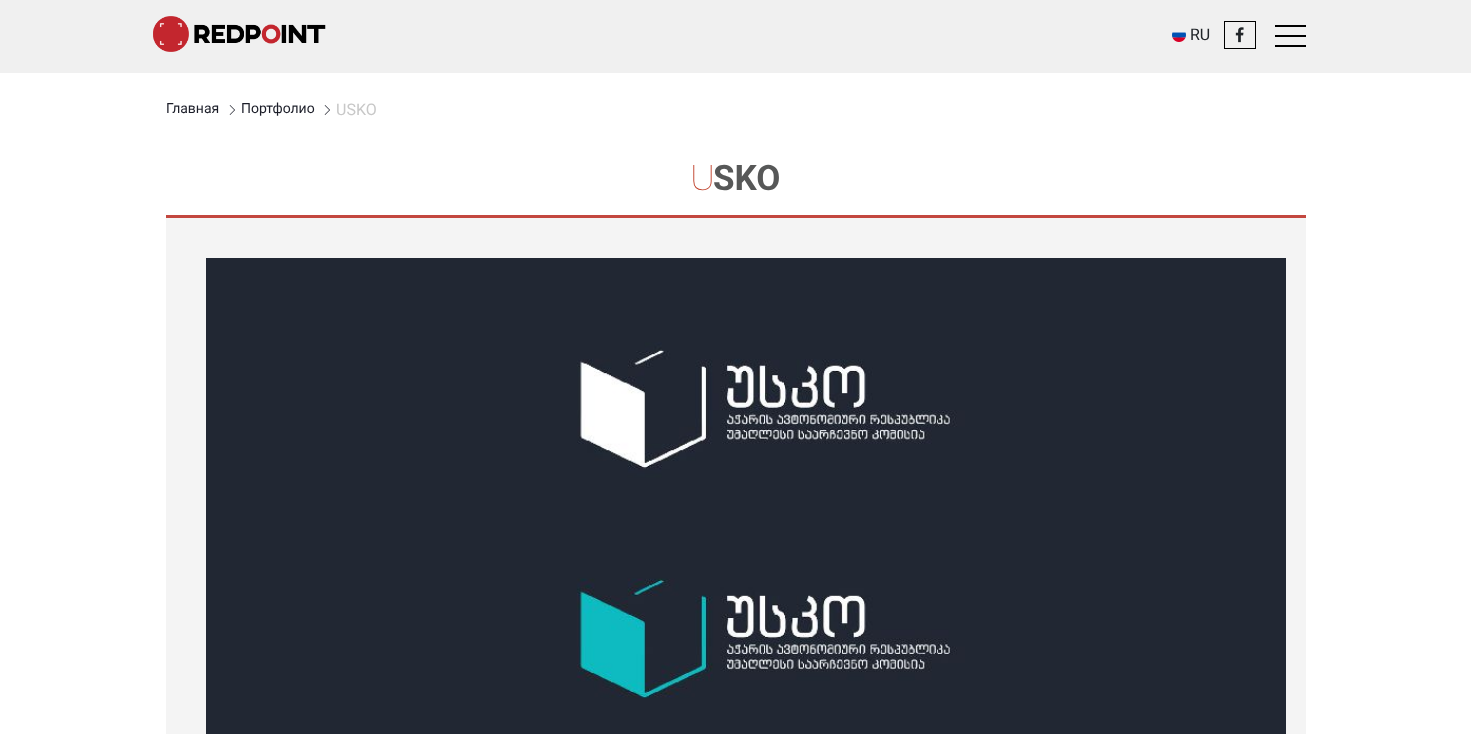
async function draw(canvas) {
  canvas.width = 1471
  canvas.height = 734
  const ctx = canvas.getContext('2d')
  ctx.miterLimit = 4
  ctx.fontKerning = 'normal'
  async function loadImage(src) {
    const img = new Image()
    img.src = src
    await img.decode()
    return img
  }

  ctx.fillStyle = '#fff'
  ctx.fillRect(0, 0, 1471, 734)
  ctx.fillStyle = '#f0f0f0'
  ctx.fillRect(0, 0, 1471, 73)
  ctx.drawImage(await loadImage('image0.png'), 153, 16, 173, 36)
  ctx.drawImage(await loadImage('image1.png'), 1172, 32, 14, 10)
  ctx.font = '16px Roboto'
  ctx.fillStyle = '#212529'
  ctx.fillText('RU', 1190, 40)
  ctx.strokeStyle = '#000'
  ctx.strokeRect(1224.5, 21.5, 31, 27)
  ctx.drawImage(await loadImage('image2.png'), 1235, 27, 9, 16)
  ctx.fillStyle = '#000'
  ctx.fillRect(1275, 25, 31, 2)
  ctx.fillRect(1275, 35, 31, 2)
  ctx.fillRect(1275, 45, 31, 2)
  ctx.font = '14px Roboto'
  ctx.fillStyle = '#1c1e29'
  ctx.fillText('Главная', 166, 113)
  ctx.drawImage(await loadImage('image3.png'), 229, 105, 6, 10)
  ctx.fillText('Портфолио', 241, 113)
  ctx.drawImage(await loadImage('image3.png'), 324, 105, 6, 10)
  ctx.font = '16px Roboto'
  ctx.fillStyle = '#c8c8c8'
  ctx.fillText('USKO', 336, 115)
  ctx.font = '100 35px Noto Sans'
  ctx.fillStyle = '#bf3f29'
  ctx.fillText('U', 690, 190)
  ctx.font = 'bold 35px Roboto'
  ctx.fillStyle = '#575858'
  ctx.fillText('SKO', 713, 190)
  ctx.fillStyle = '#f4f4f4'
  ctx.fillRect(166, 218, 1140, 516)
  ctx.fillStyle = '#c3473f'
  ctx.fillRect(166, 215, 1140, 3)
  ctx.drawImage(await loadImage('image4.png'), 206, 258, 1080, 476)
}

draw(document.querySelector('canvas'))
